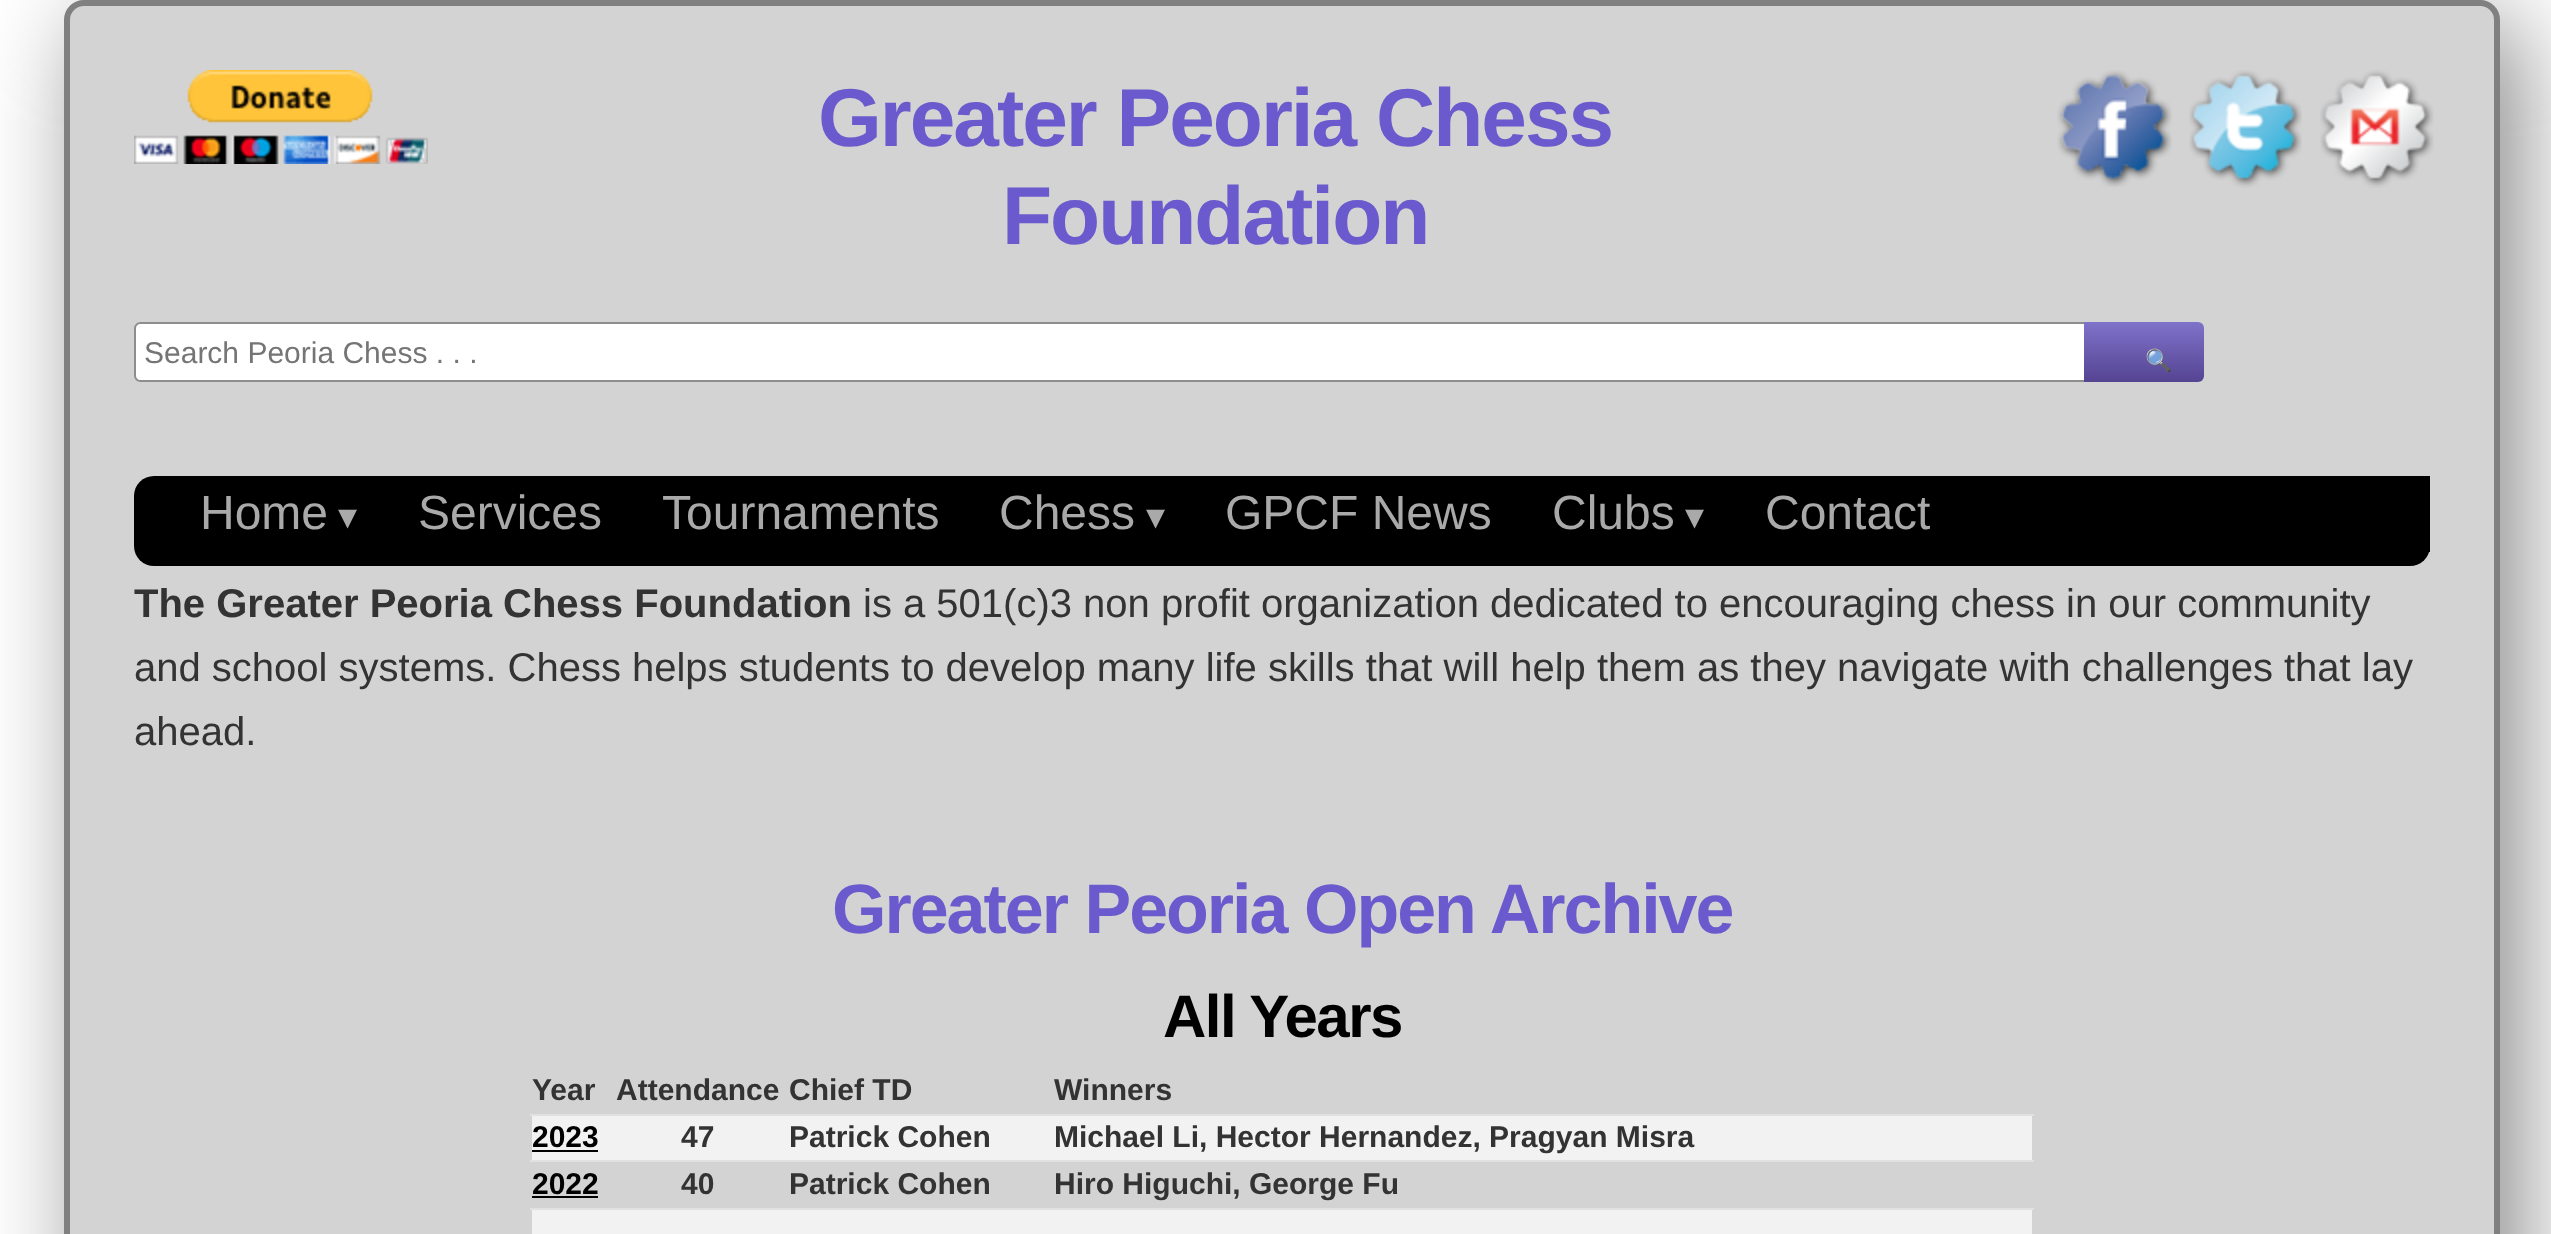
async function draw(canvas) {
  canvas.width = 2551
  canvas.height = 1234
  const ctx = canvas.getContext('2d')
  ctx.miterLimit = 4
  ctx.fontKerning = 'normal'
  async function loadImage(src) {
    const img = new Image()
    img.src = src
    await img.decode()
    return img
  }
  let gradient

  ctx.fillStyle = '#fff'
  ctx.fillRect(0, 0, 2551, 1234)
  ctx.fillStyle = '#888'
  ctx.filter = 'blur(50px)'
  ctx.beginPath()
  ctx.roundRect(84, 20, 2436, 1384, 20)
  ctx.fill()
  ctx.filter = 'none'
  ctx.fillStyle = '#d3d3d3'
  ctx.beginPath()
  ctx.roundRect(67, 3, 2430, 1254, 17)
  ctx.fill()
  ctx.strokeStyle = '#808080'
  ctx.lineWidth = 6
  ctx.stroke()
  ctx.drawImage(await loadImage('image0.png'), 134, 70, 294, 94)
  ctx.letterSpacing = '-2px'
  ctx.font = 'bold 82px Liberation Sans'
  ctx.fillStyle = '#6a5acd'
  ctx.fillText('Greater Peoria Chess', 818, 146)
  ctx.fillText('Foundation', 1002, 244)
  ctx.drawImage(await loadImage('image1.png'), 2057, 70, 115, 117)
  ctx.drawImage(await loadImage('image2.png'), 2189, 70, 113, 118)
  ctx.drawImage(await loadImage('image3.png'), 2320, 70, 114, 118)
  ctx.fillStyle = '#fff'
  ctx.beginPath()
  ctx.roundRect(134, 322, 1984, 60, [6, 0, 0, 6])
  ctx.fill()
  ctx.fillStyle = '#8d8d8d'
  ctx.beginPath()
  ctx.moveTo(140, 322)
  ctx.lineTo(2118, 322)
  ctx.lineTo(2118, 382)
  ctx.lineTo(140, 382)
  ctx.bezierCurveTo(137, 382, 134, 379, 134, 376)
  ctx.lineTo(134, 328)
  ctx.bezierCurveTo(134, 325, 137, 322, 140, 322)
  ctx.closePath()
  ctx.moveTo(140, 324)
  ctx.lineTo(2118, 324)
  ctx.lineTo(2118, 380)
  ctx.lineTo(140, 380)
  ctx.bezierCurveTo(138, 380, 136, 378, 136, 376)
  ctx.lineTo(136, 328)
  ctx.bezierCurveTo(136, 326, 138, 324, 140, 324)
  ctx.closePath()
  ctx.fill('evenodd')
  ctx.letterSpacing = '0px'
  ctx.font = '30px Liberation Sans'
  ctx.fillStyle = '#757575'
  ctx.fillText('Search Peoria Chess . . .', 144, 363)
  gradient = ctx.createLinearGradient(2144, 322, 2144, 382)
  gradient.addColorStop(0, '#7f72ca')
  gradient.addColorStop(1, '#554492')
  ctx.fillStyle = gradient
  ctx.beginPath()
  ctx.roundRect(2084, 322, 120, 60, [0, 6, 6, 0])
  ctx.fill()
  ctx.letterSpacing = '2px'
  ctx.font = 'bold 22px Noto Color Emoji'
  ctx.fillStyle = '#fff'
  ctx.fillText('🔍', 2145, 368)
  ctx.fillStyle = '#000'
  ctx.beginPath()
  ctx.roundRect(134, 476, 2296, 90, 20)
  ctx.fill()
  ctx.fillRect(2410, 476, 20, 76)
  ctx.letterSpacing = '0px'
  ctx.font = '48px Liberation Sans'
  ctx.fillStyle = '#a9a9a9'
  ctx.fillText('Home', 200, 529)
  ctx.font = '38px DejaVu Sans'
  ctx.fillText('▾', 338, 529)
  ctx.font = '48px Liberation Sans'
  ctx.fillText('Services', 418, 529)
  ctx.fillText('Tournaments', 662, 529)
  ctx.fillText('Chess', 999, 529)
  ctx.font = '38px DejaVu Sans'
  ctx.fillText('▾', 1146, 529)
  ctx.font = '48px Liberation Sans'
  ctx.fillText('GPCF News', 1225, 529)
  ctx.fillText('Clubs', 1552, 529)
  ctx.font = '38px DejaVu Sans'
  ctx.fillText('▾', 1685, 529)
  ctx.font = '48px Liberation Sans'
  ctx.fillText('Contact', 1765, 529)
  ctx.font = 'bold 40px Liberation Sans'
  ctx.fillStyle = '#333'
  ctx.fillText('The Greater Peoria Chess Foundation', 134, 617)
  ctx.font = '40px Liberation Sans'
  ctx.fillText('is a 501(c)3 non profit organization dedicated to encouraging chess in our community', 863, 617)
  ctx.fillText('and school systems. Chess helps students to develop many life skills that will help them as they navigate with challenges that lay', 134, 681)
  ctx.fillText('ahead.', 134, 745)
  ctx.letterSpacing = '-2px'
  ctx.font = 'bold 70px Liberation Sans'
  ctx.fillStyle = '#6a5acd'
  ctx.fillText('Greater Peoria Open Archive', 832, 933)
  ctx.letterSpacing = '-1.5px'
  ctx.font = 'bold 60px Liberation Sans'
  ctx.fillStyle = '#000'
  ctx.fillText('All Years', 1163, 1037)
  ctx.letterSpacing = '0px'
  ctx.font = 'bold 30px Liberation Sans'
  ctx.fillStyle = '#333'
  ctx.fillText('Year', 532, 1100)
  ctx.fillText('Attendance', 616, 1100)
  ctx.fillText('Chief TD', 789, 1100)
  ctx.fillStyle = '#e1e1e1'
  ctx.fillRect(530, 1114, 1504, 2)
  ctx.fillStyle = '#333'
  ctx.fillText('Winners', 1054, 1100)
  ctx.fillStyle = '#f2f2f2'
  ctx.fillRect(532, 1116, 1500, 44)
  ctx.fillStyle = '#000'
  ctx.fillText('2023', 532, 1147)
  ctx.fillRect(532, 1150, 66, 2)
  ctx.fillStyle = '#333'
  ctx.fillText('47', 681, 1147)
  ctx.fillText('Patrick Cohen', 789, 1147)
  ctx.fillStyle = '#e1e1e1'
  ctx.fillRect(530, 1160, 1504, 2)
  ctx.fillStyle = '#333'
  ctx.fillText('Michael Li, Hector Hernandez, Pragyan Misra', 1054, 1147)
  ctx.fillStyle = '#000'
  ctx.fillText('2022', 532, 1194)
  ctx.fillRect(532, 1196, 66, 2)
  ctx.fillStyle = '#333'
  ctx.fillText('40', 681, 1194)
  ctx.fillText('Patrick Cohen', 789, 1194)
  ctx.fillStyle = '#e1e1e1'
  ctx.fillRect(530, 1208, 1504, 2)
  ctx.fillStyle = '#333'
  ctx.fillText('Hiro Higuchi, George Fu', 1054, 1194)
  ctx.fillStyle = '#f2f2f2'
  ctx.fillRect(532, 1210, 1500, 24)
}

draw(document.querySelector('canvas'))
